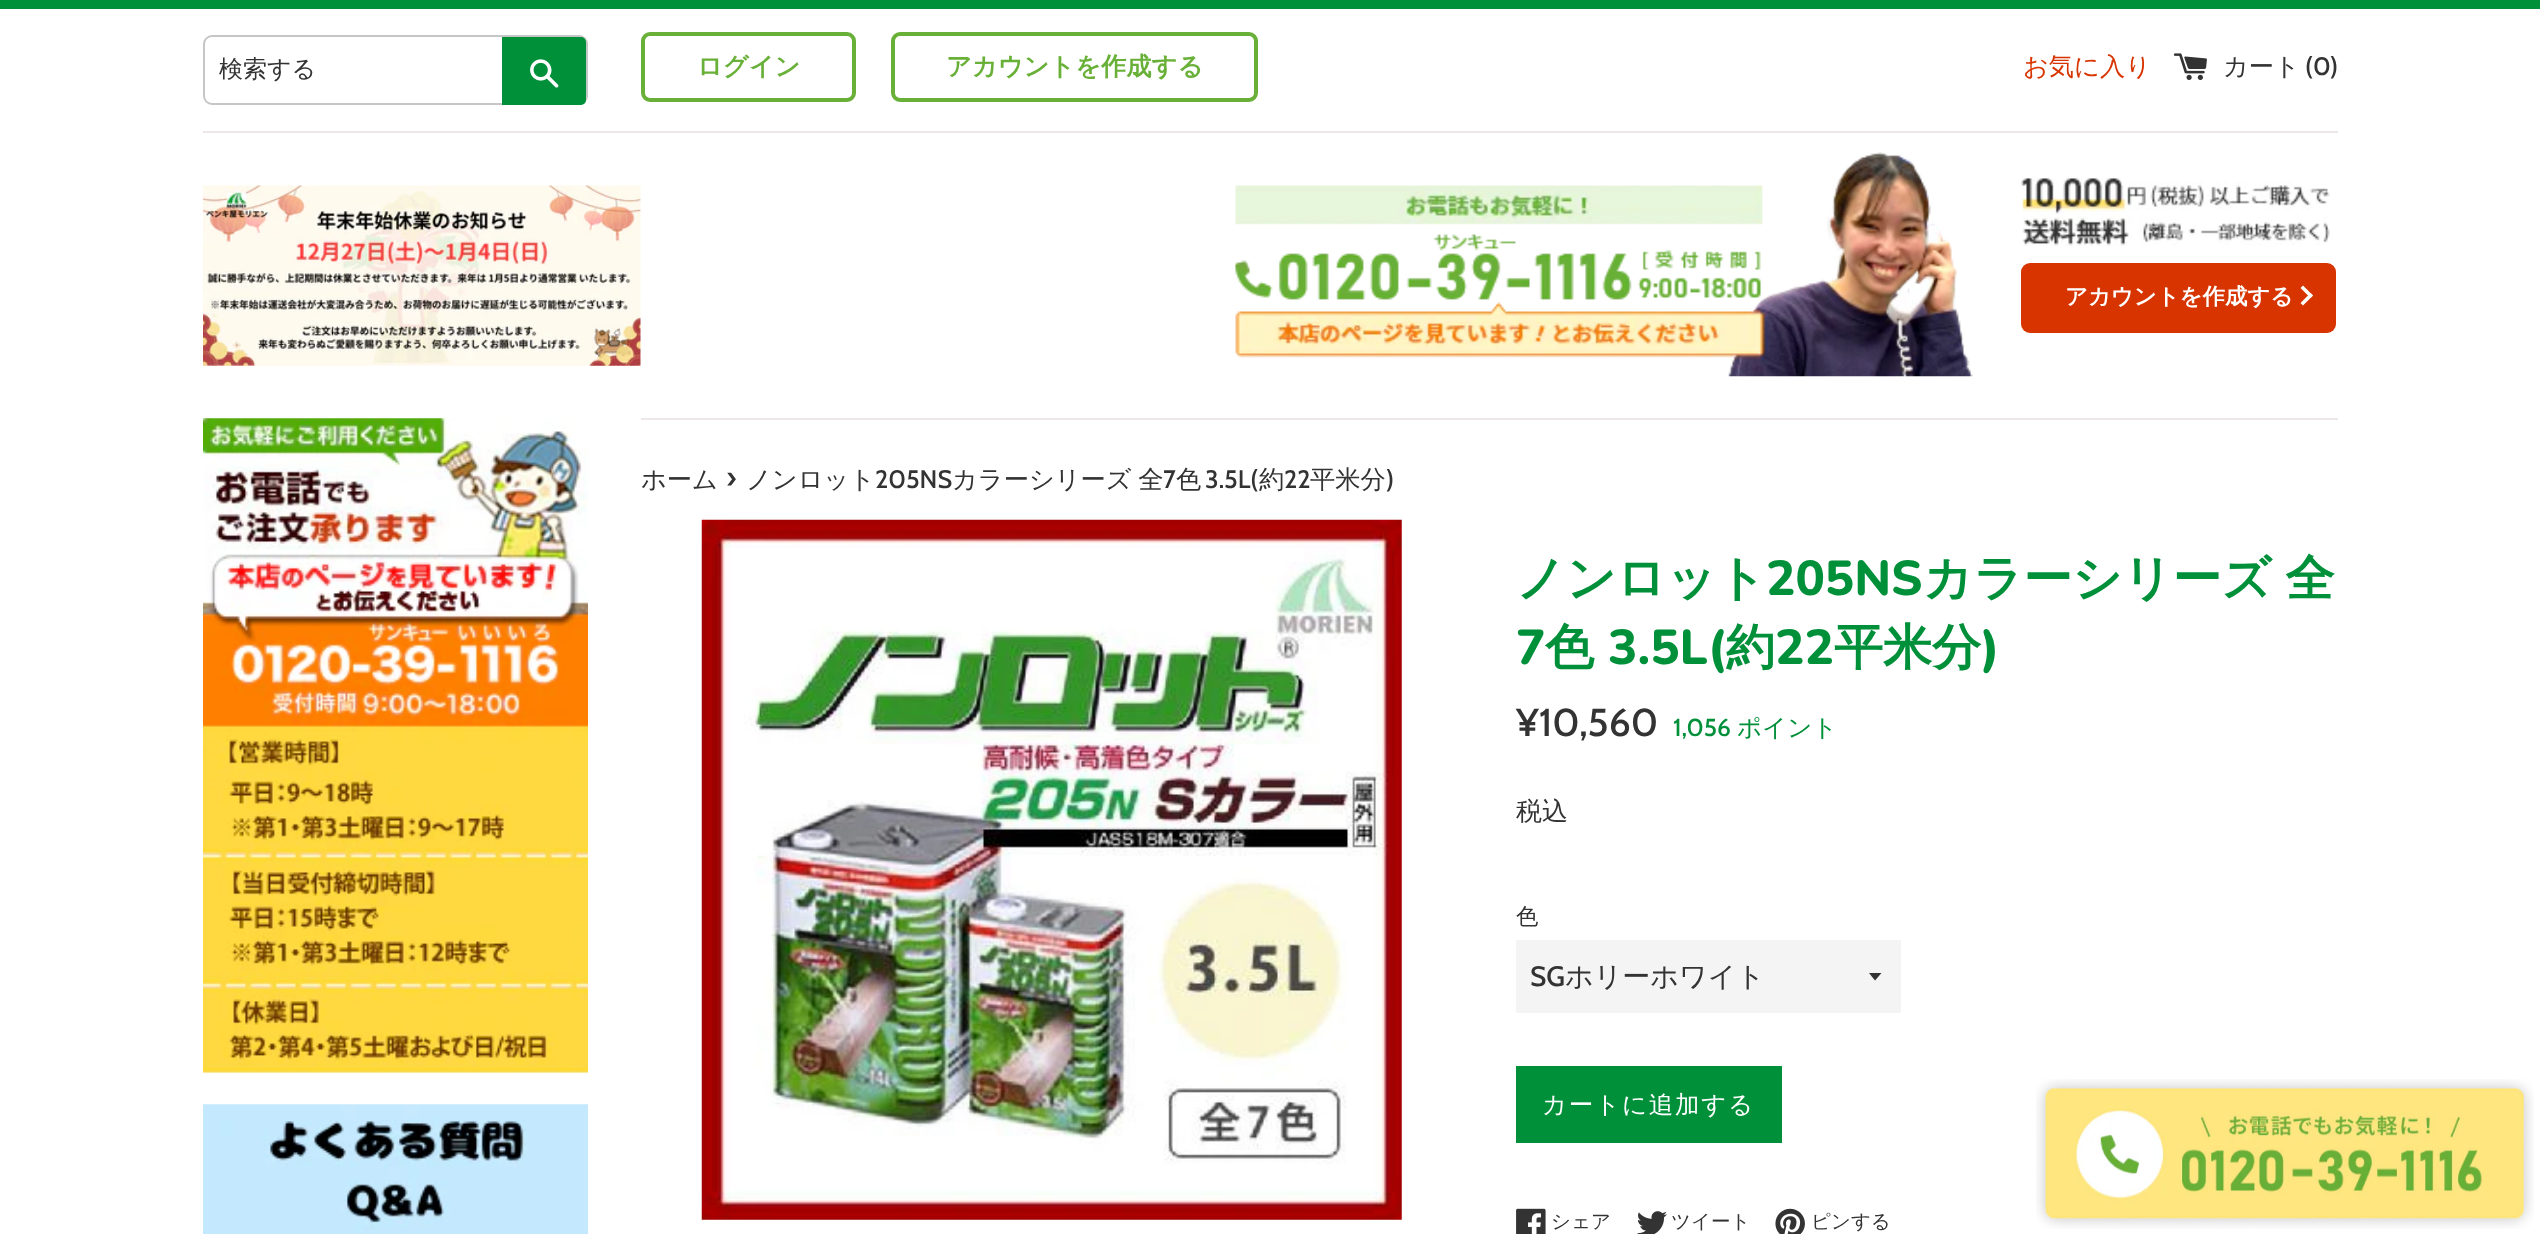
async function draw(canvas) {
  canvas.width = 2540
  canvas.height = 1234
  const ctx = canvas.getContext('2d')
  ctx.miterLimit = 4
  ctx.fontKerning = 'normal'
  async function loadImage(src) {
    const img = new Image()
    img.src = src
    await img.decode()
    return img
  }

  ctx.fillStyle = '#fff'
  ctx.fillRect(0, 0, 2540, 1234)
  ctx.fillStyle = '#00903a'
  ctx.fillRect(0, 0, 2540, 9)
  ctx.beginPath()
  ctx.roundRect(204, 36, 383, 68, 8)
  ctx.strokeStyle = '#c6c6c6'
  ctx.lineWidth = 2
  ctx.stroke()
  ctx.font = '500 24px WenQuanYi Zen Hei'
  ctx.fillStyle = '#333'
  ctx.fillText('検索する', 219, 77)
  ctx.fillStyle = '#00903a'
  ctx.beginPath()
  ctx.roundRect(502, 37, 84, 68, [0, 5, 5, 0])
  ctx.fill()
  ctx.drawImage(await loadImage('image0.png'), 530, 59, 29, 29)
  ctx.beginPath()
  ctx.roundRect(643, 34, 211, 66, 7)
  ctx.strokeStyle = '#69b038'
  ctx.lineWidth = 4
  ctx.stroke()
  ctx.font = 'bold 25.25px WenQuanYi Zen Hei'
  ctx.fillStyle = '#69b038'
  ctx.fillText('ログイン', 697, 75)
  ctx.beginPath()
  ctx.roundRect(893, 34, 363, 66, 7)
  ctx.stroke()
  ctx.fillText('アカウントを作成する', 946, 75)
  ctx.font = '500 25.25px WenQuanYi Zen Hei'
  ctx.fillStyle = '#d83400'
  ctx.fillText('お気に入り', 2023, 75)
  ctx.drawImage(await loadImage('image1.png'), 2174, 53, 33, 27)
  ctx.fillStyle = '#333'
  ctx.fillText('カート', 2223, 75)
  ctx.font = '500 25.25px Cabin'
  ctx.fillText('(', 2305, 75)
  ctx.fillText('0', 2313, 75)
  ctx.fillText(')', 2330, 75)
  ctx.fillStyle = '#ede8e7'
  ctx.fillRect(203, 131, 2135, 2)
  ctx.drawImage(await loadImage('image2.png'), 203, 185, 438, 181)
  ctx.drawImage(await loadImage('image3.png'), 1235, 152, 738, 225)
  ctx.drawImage(await loadImage('image4.png'), 2021, 178, 309, 68)
  ctx.fillStyle = '#d83400'
  ctx.beginPath()
  ctx.roundRect(2021, 263, 315, 70, 9)
  ctx.fill()
  ctx.font = 'bold 22.4px WenQuanYi Zen Hei'
  ctx.fillStyle = '#fff'
  ctx.fillText('アカウントを作成する', 2065, 304)
  ctx.beginPath()
  ctx.moveTo(2303, 285.5)
  ctx.lineTo(2313, 295.5)
  ctx.lineTo(2310.5, 298)
  ctx.lineTo(2300.5, 288)
  ctx.closePath()
  ctx.fill()
  ctx.beginPath()
  ctx.moveTo(2310.5, 293)
  ctx.lineTo(2313, 295.5)
  ctx.lineTo(2303, 305.5)
  ctx.lineTo(2300.5, 303)
  ctx.closePath()
  ctx.fill()
  ctx.drawImage(await loadImage('image5.png'), 203, 418, 385, 656)
  ctx.drawImage(await loadImage('image6.png'), 203, 1104, 385, 130)
  ctx.fillStyle = '#ede8e7'
  ctx.fillRect(641, 418, 1697, 2)
  ctx.font = '500 25.25px WenQuanYi Zen Hei'
  ctx.fillStyle = '#333'
  ctx.fillText('ホーム', 641, 488)
  ctx.font = '500 31px Cabin'
  ctx.fillText('›', 726, 488)
  ctx.font = '500 25.25px WenQuanYi Zen Hei'
  ctx.fillText('ノンロット', 746, 488)
  ctx.font = '500 25.25px Cabin'
  ctx.fillText('205NS', 875, 488)
  ctx.wordSpacing = '-1px'
  ctx.font = '500 25.25px WenQuanYi Zen Hei'
  ctx.fillText('カラーシリーズ 全', 952, 488)
  ctx.wordSpacing = '0px'
  ctx.font = '500 25.25px Cabin'
  ctx.fillText('7', 1163, 488)
  ctx.font = '500 25.25px WenQuanYi Zen Hei'
  ctx.fillText('色', 1176, 488)
  ctx.font = '500 25.25px Cabin'
  ctx.fillText('3.5L(', 1205, 488)
  ctx.font = '500 25.25px WenQuanYi Zen Hei'
  ctx.fillText('約', 1259, 488)
  ctx.font = '500 25.25px Cabin'
  ctx.fillText('22', 1284, 488)
  ctx.font = '500 25.25px WenQuanYi Zen Hei'
  ctx.fillText('平米分', 1310, 488)
  ctx.font = '500 25.25px Cabin'
  ctx.fillText(')', 1386, 488)
  ctx.drawImage(await loadImage('image7.png'), 701, 519, 701, 701)
  ctx.font = 'bold 49px WenQuanYi Zen Hei'
  ctx.fillStyle = '#00903a'
  ctx.fillText('ノンロット', 1516, 595)
  ctx.font = '800 49px Nunito'
  ctx.fillText('205NS', 1766, 595)
  ctx.wordSpacing = '-1px'
  ctx.font = 'bold 49px WenQuanYi Zen Hei'
  ctx.fillText('カラーシリーズ 全', 1923, 595)
  ctx.wordSpacing = '0px'
  ctx.font = '800 49px Nunito'
  ctx.fillText('7', 1516, 664)
  ctx.font = 'bold 49px WenQuanYi Zen Hei'
  ctx.fillText('色', 1545, 664)
  ctx.font = '800 49px Nunito'
  ctx.fillText('3.5L(', 1608, 664)
  ctx.font = 'bold 49px WenQuanYi Zen Hei'
  ctx.fillText('約', 1726, 664)
  ctx.font = '800 49px Nunito'
  ctx.fillText('22', 1775, 664)
  ctx.font = 'bold 49px WenQuanYi Zen Hei'
  ctx.fillText('平米分', 1834, 664)
  ctx.font = '800 49px Nunito'
  ctx.fillText(')', 1981, 664)
  ctx.font = '500 39px Cabin'
  ctx.fillStyle = '#333'
  ctx.fillText('¥10,560', 1516, 736)
  ctx.font = '500 24.5px Cabin'
  ctx.fillStyle = '#00903a'
  ctx.fillText('1,056', 1673, 736)
  ctx.font = '500 24.5px WenQuanYi Zen Hei'
  ctx.fillText('ポイント', 1737, 736)
  ctx.font = '500 26px WenQuanYi Zen Hei'
  ctx.fillStyle = '#333'
  ctx.fillText('税込', 1516, 820)
  ctx.font = '500 22.4px WenQuanYi Zen Hei'
  ctx.fillText('色', 1516, 924)
  ctx.fillStyle = '#f4f4f4'
  ctx.fillRect(1516, 940, 385, 73)
  ctx.fillStyle = '#333'
  ctx.beginPath()
  ctx.moveTo(1869, 973)
  ctx.lineTo(1875, 980.5)
  ctx.lineTo(1881.5, 973)
  ctx.closePath()
  ctx.fill()
  ctx.font = '500 28px Cabin'
  ctx.fillText('SG', 1530, 986)
  ctx.font = '500 28px WenQuanYi Zen Hei'
  ctx.fillText('ホリーホワイト', 1565, 986)
  ctx.fillStyle = '#00903a'
  ctx.fillRect(1516, 1066, 266, 77)
  ctx.letterSpacing = '1.75px'
  ctx.font = '500 24.5px WenQuanYi Zen Hei'
  ctx.fillStyle = '#fff'
  ctx.fillText('カートに追加する', 1542, 1113)
  ctx.drawImage(await loadImage('image8.png'), 1516, 1208, 30, 26)
  ctx.letterSpacing = '0px'
  ctx.font = '500 19.5px WenQuanYi Zen Hei'
  ctx.fillStyle = '#333'
  ctx.fillText('シェア', 1551, 1228)
  ctx.drawImage(await loadImage('image9.png'), 1637, 1211, 30, 23)
  ctx.fillText('ツイート', 1671, 1228)
  ctx.drawImage(await loadImage('image10.png'), 1775, 1208, 30, 26)
  ctx.fillText('ピンする', 1811, 1228)
  ctx.drawImage(await loadImage('image11.png'), 2036, 1079, 498, 150)
}

draw(document.querySelector('canvas'))
